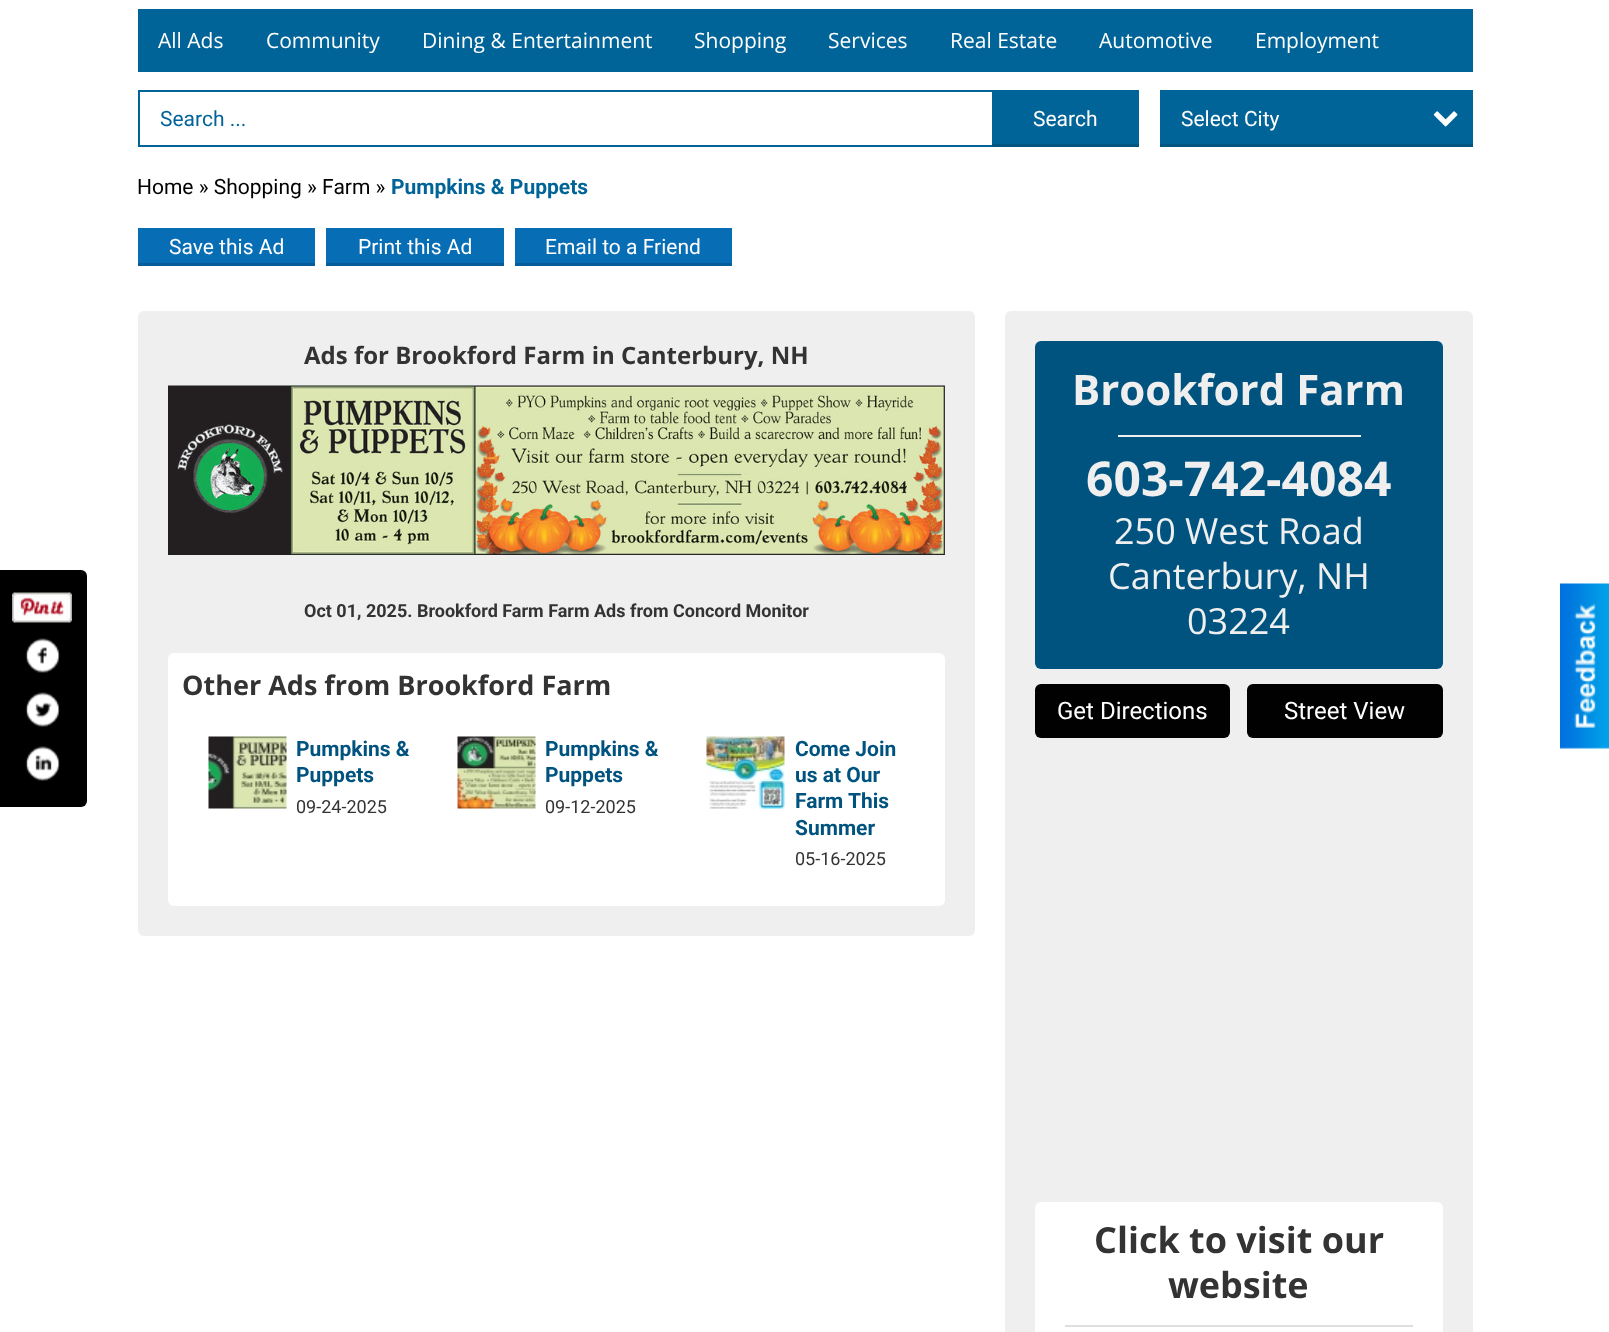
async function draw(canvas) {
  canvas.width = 1609
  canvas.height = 1332
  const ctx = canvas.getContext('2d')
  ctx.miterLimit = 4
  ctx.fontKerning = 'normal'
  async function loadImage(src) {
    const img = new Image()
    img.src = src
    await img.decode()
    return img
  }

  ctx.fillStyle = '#fff'
  ctx.fillRect(0, 0, 1609, 1332)
  ctx.fillStyle = '#000'
  ctx.beginPath()
  ctx.roundRect(0, 570, 87, 237, [0, 6, 6, 0])
  ctx.fill()
  ctx.drawImage(await loadImage('image0.png'), 12, 592, 60, 31)
  ctx.drawImage(await loadImage('image1.png'), 25, 638, 35, 35)
  ctx.drawImage(await loadImage('image2.png'), 25, 692, 35, 35)
  ctx.drawImage(await loadImage('image3.png'), 25, 746, 35, 35)
  ctx.fillStyle = '#006498'
  ctx.fillRect(138, 9, 1335, 63)
  ctx.font = '21px Open Sans'
  ctx.fillStyle = '#fff'
  ctx.fillText('All Ads', 158, 48)
  ctx.fillText('Community', 266, 48)
  ctx.fillText('Dining & Entertainment', 422, 48)
  ctx.fillText('Shopping', 694, 48)
  ctx.fillText('Services', 828, 48)
  ctx.fillText('Real Estate', 950, 48)
  ctx.fillText('Automotive', 1099, 48)
  ctx.fillText('Employment', 1255, 48)
  ctx.strokeStyle = '#006498'
  ctx.lineWidth = 2
  ctx.strokeRect(139, 91, 999, 55)
  ctx.font = '21px Roboto'
  ctx.fillStyle = '#006498'
  ctx.fillText('Search ...', 160, 126)
  ctx.fillRect(992, 92, 145, 52)
  ctx.fillStyle = '#005581'
  ctx.fillRect(992, 144, 147, 3)
  ctx.fillStyle = '#fff'
  ctx.fillText('Search', 1033, 126)
  ctx.fillStyle = '#006498'
  ctx.fillRect(1160, 90, 313, 54)
  ctx.fillStyle = '#005581'
  ctx.fillRect(1160, 144, 313, 3)
  ctx.fillStyle = '#fff'
  ctx.fillText('Select City', 1181, 126)
  ctx.drawImage(await loadImage('image4.png'), 1433, 111, 25, 16)
  ctx.fillStyle = '#000'
  ctx.fillText('Home » Shopping » Farm »', 137, 194)
  ctx.font = 'bold 21px Roboto'
  ctx.fillStyle = '#006498'
  ctx.fillText('Pumpkins & Puppets', 391, 194)
  ctx.fillStyle = '#076db5'
  ctx.fillRect(138, 228, 177, 35)
  ctx.fillStyle = '#065d9a'
  ctx.fillRect(138, 263, 177, 3)
  ctx.font = '21px Roboto'
  ctx.fillStyle = '#fff'
  ctx.fillText('Save this Ad', 169, 254)
  ctx.fillStyle = '#076db5'
  ctx.fillRect(326, 228, 178, 35)
  ctx.fillStyle = '#065d9a'
  ctx.fillRect(326, 263, 178, 3)
  ctx.fillStyle = '#fff'
  ctx.fillText('Print this Ad', 358, 254)
  ctx.fillStyle = '#076db5'
  ctx.fillRect(515, 228, 217, 35)
  ctx.fillStyle = '#065d9a'
  ctx.fillRect(515, 263, 217, 3)
  ctx.fillStyle = '#fff'
  ctx.fillText('Email to a Friend', 545, 254)
  ctx.fillStyle = '#efefef'
  ctx.beginPath()
  ctx.roundRect(138, 311, 837, 625, 6)
  ctx.fill()
  ctx.font = 'bold 24px Open Sans'
  ctx.fillStyle = '#333'
  ctx.fillText('Ads for Brookford Farm in Canterbury, NH', 304, 364)
  ctx.drawImage(await loadImage('image5.png'), 168, 385, 777, 170)
  ctx.font = 'bold 18px Roboto'
  ctx.fillText('Oct 01, 2025. Brookford Farm Farm Ads from Concord Monitor', 304, 617)
  ctx.fillStyle = '#fff'
  ctx.beginPath()
  ctx.roundRect(168, 653, 777, 253, 6)
  ctx.fill()
  ctx.font = 'bold 27px Open Sans'
  ctx.fillStyle = '#333'
  ctx.fillText('Other Ads from Brookford Farm', 182, 695)
  ctx.drawImage(await loadImage('image6.png'), 208, 736, 79, 73)
  ctx.font = 'bold 21px Roboto'
  ctx.fillStyle = '#00537f'
  ctx.fillText('Pumpkins &', 296, 756)
  ctx.fillText('Puppets', 296, 782)
  ctx.font = '18px Roboto'
  ctx.fillStyle = '#333'
  ctx.fillText('09-24-2025', 296, 813)
  ctx.drawImage(await loadImage('image7.png'), 457, 736, 79, 73)
  ctx.font = 'bold 21px Roboto'
  ctx.fillStyle = '#00537f'
  ctx.fillText('Pumpkins &', 545, 756)
  ctx.fillText('Puppets', 545, 782)
  ctx.font = '18px Roboto'
  ctx.fillStyle = '#333'
  ctx.fillText('09-12-2025', 545, 813)
  ctx.drawImage(await loadImage('image8.png'), 706, 736, 79, 73)
  ctx.font = 'bold 21px Roboto'
  ctx.fillStyle = '#00537f'
  ctx.fillText('Come Join', 795, 756)
  ctx.fillText('us at Our', 795, 782)
  ctx.fillText('Farm This', 795, 808)
  ctx.fillText('Summer', 795, 835)
  ctx.font = '18px Roboto'
  ctx.fillStyle = '#333'
  ctx.fillText('05-16-2025', 795, 865)
  ctx.fillStyle = '#efefef'
  ctx.beginPath()
  ctx.roundRect(1005, 311, 468, 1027, 6)
  ctx.fill()
  ctx.fillStyle = '#00537f'
  ctx.beginPath()
  ctx.roundRect(1035, 341, 408, 328, 6)
  ctx.fill()
  ctx.font = 'bold 42px Open Sans'
  ctx.fillStyle = '#efefef'
  ctx.fillText('Brookford Farm', 1072, 405)
  ctx.fillRect(1118, 435, 243, 2)
  ctx.font = 'bold 48px Open Sans'
  ctx.fillText('603-742-4084', 1086, 496)
  ctx.font = '36px Open Sans'
  ctx.fillText('250 West Road', 1114, 544)
  ctx.fillText('Canterbury, NH', 1108, 589)
  ctx.fillText('03224', 1187, 634)
  ctx.fillStyle = '#010101'
  ctx.beginPath()
  ctx.roundRect(1035, 684, 195, 54, 6)
  ctx.fill()
  ctx.font = '24px Roboto'
  ctx.fillStyle = '#fff'
  ctx.fillText('Get Directions', 1057, 719)
  ctx.fillStyle = '#010101'
  ctx.beginPath()
  ctx.roundRect(1247, 684, 196, 54, 6)
  ctx.fill()
  ctx.fillStyle = '#fff'
  ctx.fillText('Street View', 1284, 719)
  ctx.beginPath()
  ctx.roundRect(1035, 1202, 408, 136, 6)
  ctx.fill()
  ctx.fillStyle = '#dfdfdf'
  ctx.fillRect(1065, 1325, 348, 2)
  ctx.font = 'bold 36px Open Sans'
  ctx.fillStyle = '#333'
  ctx.fillText('Click to visit our', 1094, 1253)
  ctx.fillText('website', 1168, 1298)
  ctx.drawImage(await loadImage('image9.png'), 1560, 583, 49, 166)
}

draw(document.querySelector('canvas'))
